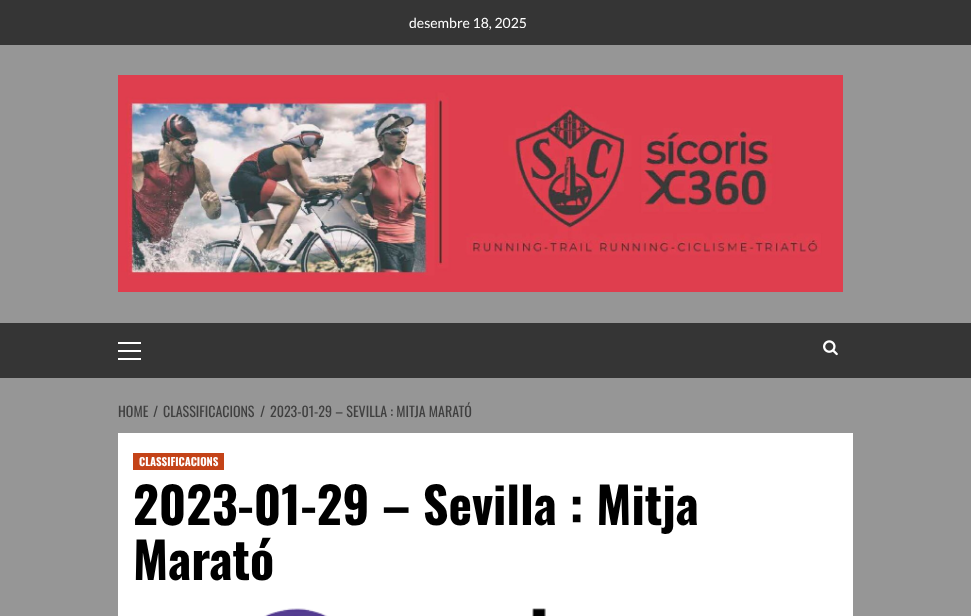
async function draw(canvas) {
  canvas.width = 971
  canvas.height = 616
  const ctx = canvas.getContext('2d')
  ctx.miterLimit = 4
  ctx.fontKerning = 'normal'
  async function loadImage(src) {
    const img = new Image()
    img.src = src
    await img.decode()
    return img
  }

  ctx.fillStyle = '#969696'
  ctx.fillRect(0, 0, 971, 616)
  ctx.fillStyle = '#353535'
  ctx.fillRect(0, 0, 971, 45)
  ctx.font = '14px Lato'
  ctx.fillStyle = '#fff'
  ctx.fillText('desembre 18, 2025', 409, 28)
  ctx.drawImage(await loadImage('image0.png'), 118, 75, 725, 217)
  ctx.fillStyle = '#353535'
  ctx.fillRect(0, 323, 971, 55)
  ctx.fillStyle = '#fff'
  ctx.fillRect(118, 350, 23, 2)
  ctx.fillRect(118, 342, 23, 2)
  ctx.fillRect(118, 358, 23, 2)
  ctx.drawImage(await loadImage('image1.png'), 823, 340, 15, 16)
  ctx.font = '14px Oswald'
  ctx.fillStyle = '#404040'
  ctx.fillText('HOME', 118, 417)
  ctx.fillText('/', 153, 417)
  ctx.fillText('CLASSIFICACIONS', 163, 417)
  ctx.fillText('/', 260, 417)
  ctx.fillText('2023-01-29 – SEVILLA : MITJA MARATÓ', 270, 417)
  ctx.fillStyle = '#fff'
  ctx.fillRect(118, 433, 735, 183)
  ctx.fillStyle = '#c44318'
  ctx.fillRect(133, 453, 91, 17)
  ctx.font = 'bold 11px Oswald'
  ctx.fillStyle = '#fff'
  ctx.fillText('CLASSIFICACIONS', 139, 466)
  ctx.font = 'bold 50px Oswald'
  ctx.fillStyle = '#000'
  ctx.fillText('2023-01-29 – Sevilla : Mitja', 133, 525)
  ctx.fillText('Marató', 133, 580)
  ctx.drawImage(await loadImage('image2.png'), 264, 608, 282, 8)
}

draw(document.querySelector('canvas'))
